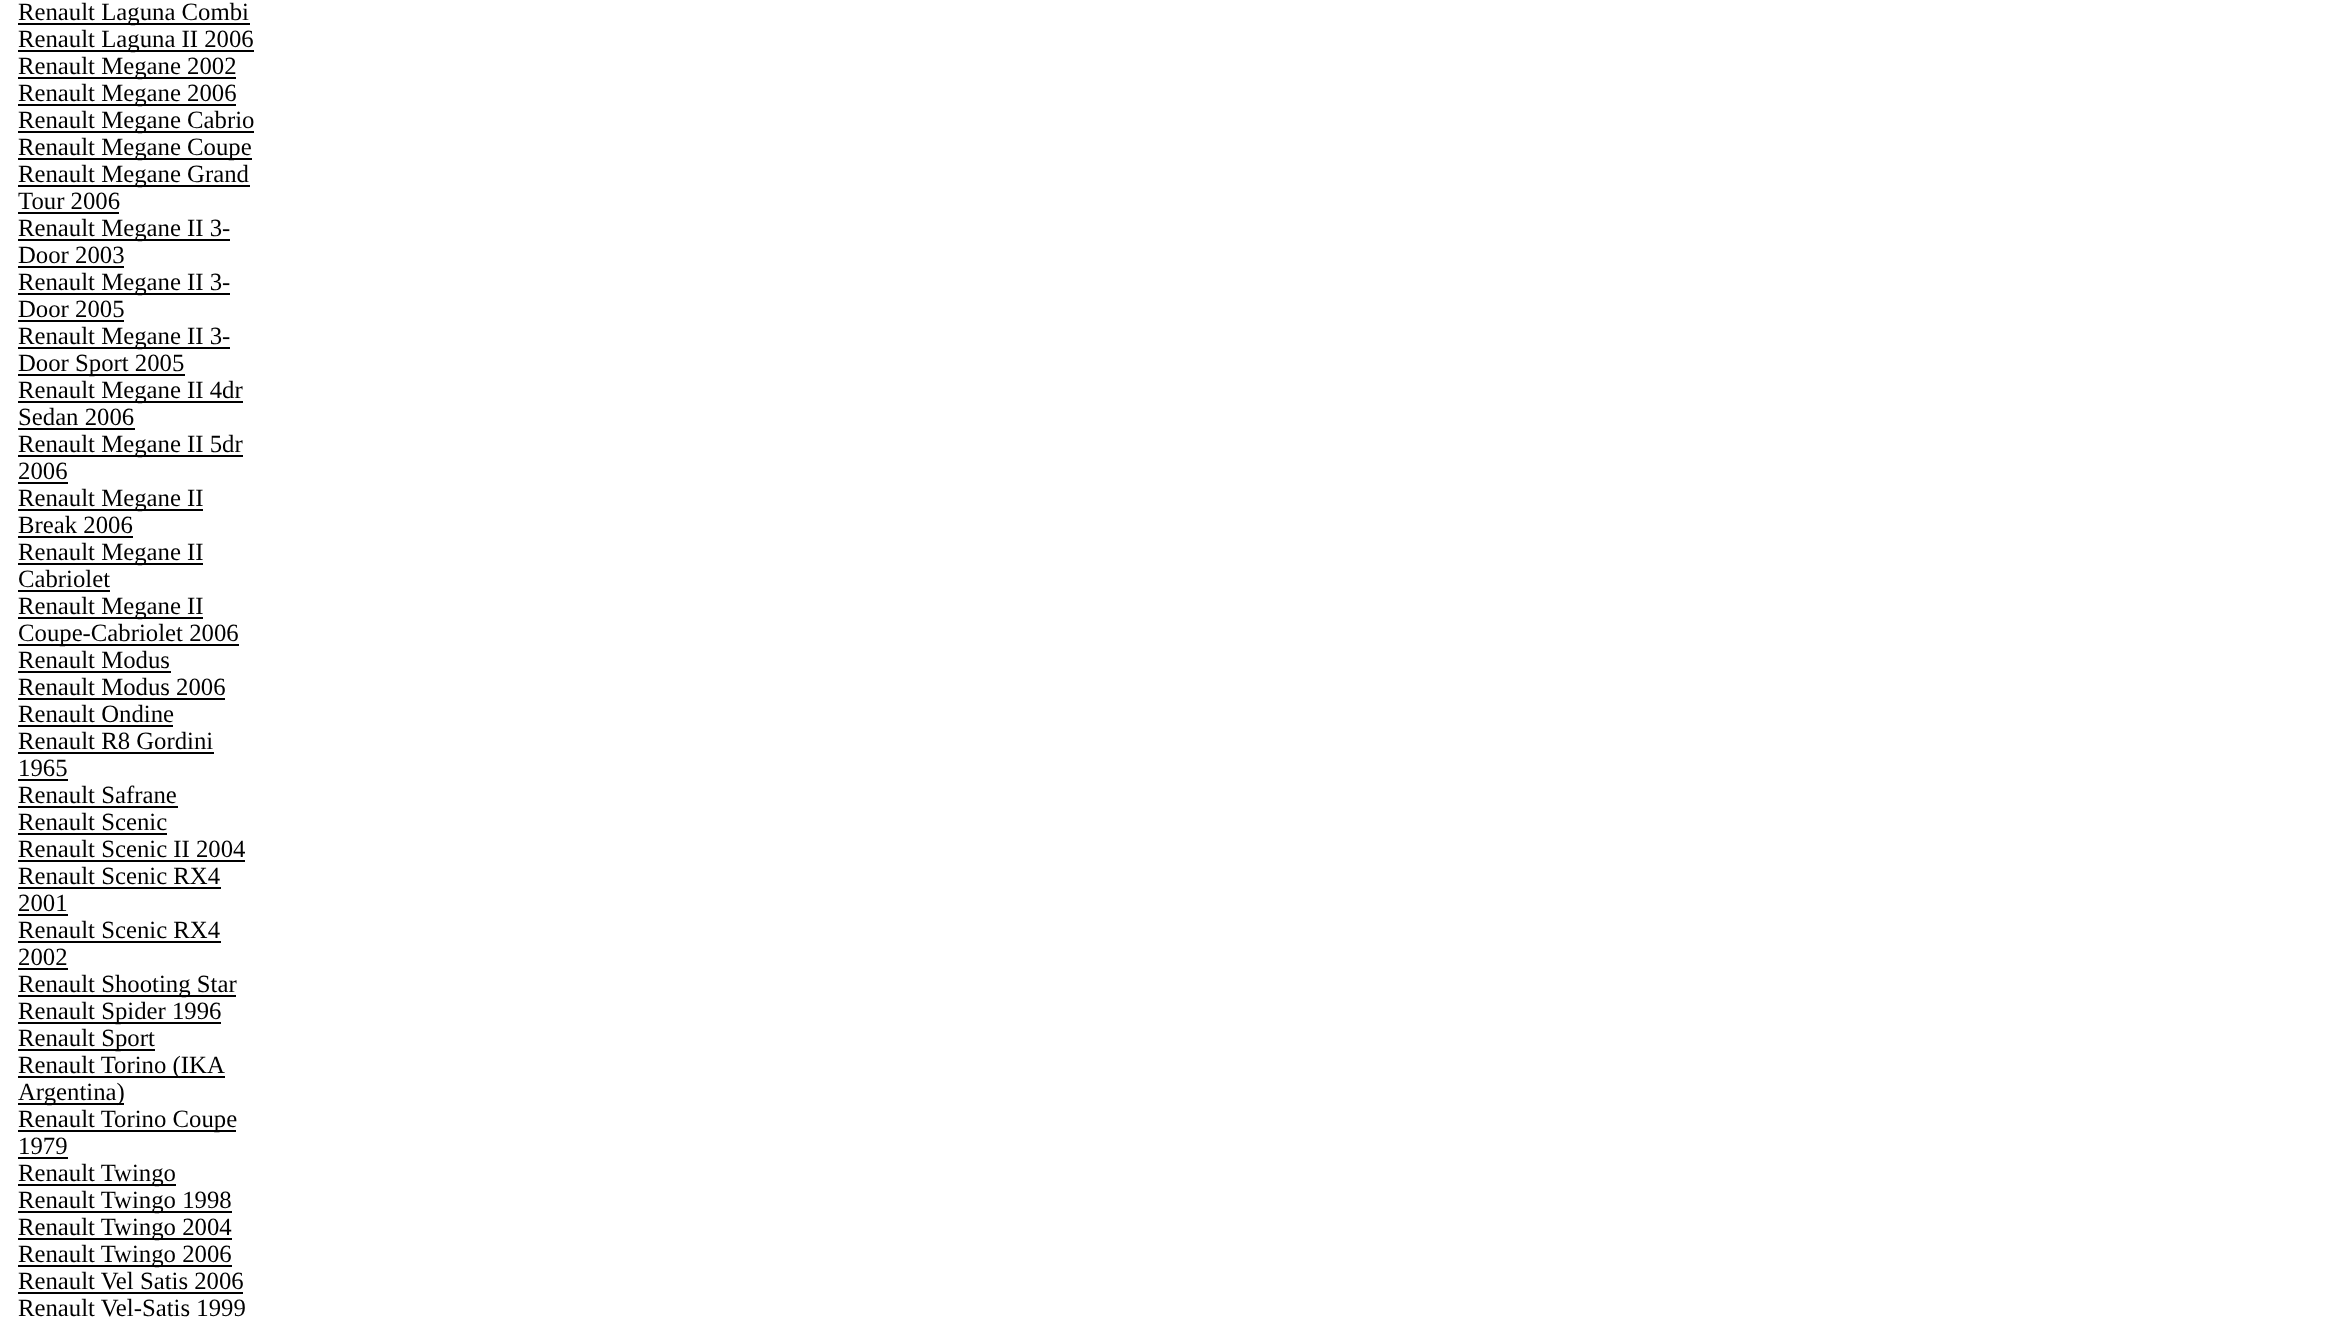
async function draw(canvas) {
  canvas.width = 2343
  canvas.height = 1319
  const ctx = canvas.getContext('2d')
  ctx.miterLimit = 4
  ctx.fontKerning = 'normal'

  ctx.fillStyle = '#fff'
  ctx.fillRect(0, 0, 2343, 1319)
  ctx.fillStyle = '#000'
  ctx.fillRect(18, 23, 232, 2)
  ctx.font = '24.75px Liberation Serif'
  ctx.fillText('Renault Laguna Combi', 18, 20)
  ctx.fillRect(18, 50, 236, 2)
  ctx.fillText('Renault Laguna II 2006', 18, 47)
  ctx.fillRect(18, 77, 218, 2)
  ctx.fillText('Renault Megane 2002', 18, 74)
  ctx.fillRect(18, 104, 218, 2)
  ctx.fillText('Renault Megane 2006', 18, 101)
  ctx.fillRect(18, 131, 236, 2)
  ctx.fillText('Renault Megane Cabrio', 18, 128)
  ctx.fillRect(18, 158, 234, 2)
  ctx.fillText('Renault Megane Coupe', 18, 155)
  ctx.fillRect(18, 185, 232, 2)
  ctx.fillText('Renault Megane Grand', 18, 182)
  ctx.fillText('Tour 2006', 18, 209)
  ctx.fillRect(18, 212, 101, 2)
  ctx.fillRect(18, 239, 212, 2)
  ctx.fillText('Renault Megane II 3-', 18, 236)
  ctx.fillText('Door 2003', 18, 263)
  ctx.fillRect(18, 266, 106, 2)
  ctx.fillRect(18, 293, 212, 2)
  ctx.fillText('Renault Megane II 3-', 18, 290)
  ctx.fillText('Door 2005', 18, 317)
  ctx.fillRect(18, 320, 106, 2)
  ctx.fillRect(18, 347, 212, 2)
  ctx.fillText('Renault Megane II 3-', 18, 344)
  ctx.fillRect(18, 374, 167, 2)
  ctx.fillText('Door Sport 2005', 18, 371)
  ctx.fillRect(18, 401, 225, 2)
  ctx.fillText('Renault Megane II 4dr', 18, 398)
  ctx.fillText('Sedan 2006', 18, 425)
  ctx.fillRect(18, 428, 117, 2)
  ctx.fillRect(18, 455, 225, 2)
  ctx.fillText('Renault Megane II 5dr', 18, 452)
  ctx.fillText('2006', 18, 479)
  ctx.fillRect(18, 482, 50, 2)
  ctx.fillRect(18, 509, 185, 2)
  ctx.fillText('Renault Megane II', 18, 506)
  ctx.fillText('Break 2006', 18, 533)
  ctx.fillRect(18, 536, 115, 2)
  ctx.fillRect(18, 563, 185, 2)
  ctx.fillText('Renault Megane II', 18, 560)
  ctx.fillText('Cabriolet', 18, 587)
  ctx.fillRect(18, 590, 92, 2)
  ctx.fillRect(18, 617, 185, 2)
  ctx.fillText('Renault Megane II', 18, 614)
  ctx.fillRect(18, 644, 221, 2)
  ctx.fillText('Coupe-Cabriolet 2006', 18, 641)
  ctx.fillText('Renault Modus', 18, 668)
  ctx.fillRect(18, 671, 153, 2)
  ctx.fillText('Renault Modus 2006', 18, 695)
  ctx.fillRect(18, 698, 207, 2)
  ctx.fillText('Renault Ondine', 18, 722)
  ctx.fillRect(18, 725, 155, 2)
  ctx.fillText('Renault R8 Gordini', 18, 749)
  ctx.fillRect(18, 752, 196, 2)
  ctx.fillText('1965', 18, 776)
  ctx.fillRect(18, 779, 50, 2)
  ctx.fillText('Renault Safrane', 18, 803)
  ctx.fillRect(18, 806, 160, 2)
  ctx.fillText('Renault Scenic', 18, 830)
  ctx.fillRect(18, 833, 149, 2)
  ctx.fillText('Renault Scenic II 2004', 18, 857)
  ctx.fillRect(18, 860, 227, 2)
  ctx.fillText('Renault Scenic RX4', 18, 884)
  ctx.fillRect(18, 887, 203, 2)
  ctx.fillText('2001', 18, 911)
  ctx.fillRect(18, 914, 50, 2)
  ctx.fillText('Renault Scenic RX4', 18, 938)
  ctx.fillRect(18, 941, 203, 2)
  ctx.fillText('2002', 18, 965)
  ctx.fillRect(18, 968, 50, 2)
  ctx.fillRect(18, 995, 218, 2)
  ctx.fillText('Renault Shooting Star', 18, 992)
  ctx.fillRect(18, 1022, 203, 2)
  ctx.fillText('Renault Spider 1996', 18, 1019)
  ctx.fillRect(18, 1049, 137, 2)
  ctx.fillText('Renault Sport', 18, 1046)
  ctx.fillRect(18, 1076, 207, 2)
  ctx.fillText('Renault Torino (IKA', 18, 1073)
  ctx.fillRect(18, 1103, 106, 2)
  ctx.fillText('Argentina)', 18, 1100)
  ctx.fillRect(18, 1130, 218, 2)
  ctx.fillText('Renault Torino Coupe', 18, 1127)
  ctx.fillText('1979', 18, 1154)
  ctx.fillRect(18, 1157, 50, 2)
  ctx.fillRect(18, 1184, 158, 2)
  ctx.fillText('Renault Twingo', 18, 1181)
  ctx.fillRect(18, 1211, 214, 2)
  ctx.fillText('Renault Twingo 1998', 18, 1208)
  ctx.fillRect(18, 1238, 214, 2)
  ctx.fillText('Renault Twingo 2004', 18, 1235)
  ctx.fillRect(18, 1265, 214, 2)
  ctx.fillText('Renault Twingo 2006', 18, 1262)
  ctx.fillText('Renault Vel Satis 2006', 18, 1289)
  ctx.fillRect(18, 1292, 225, 2)
  ctx.fillText('Renault Vel-Satis 1999', 18, 1316)
}

draw(document.querySelector('canvas'))
